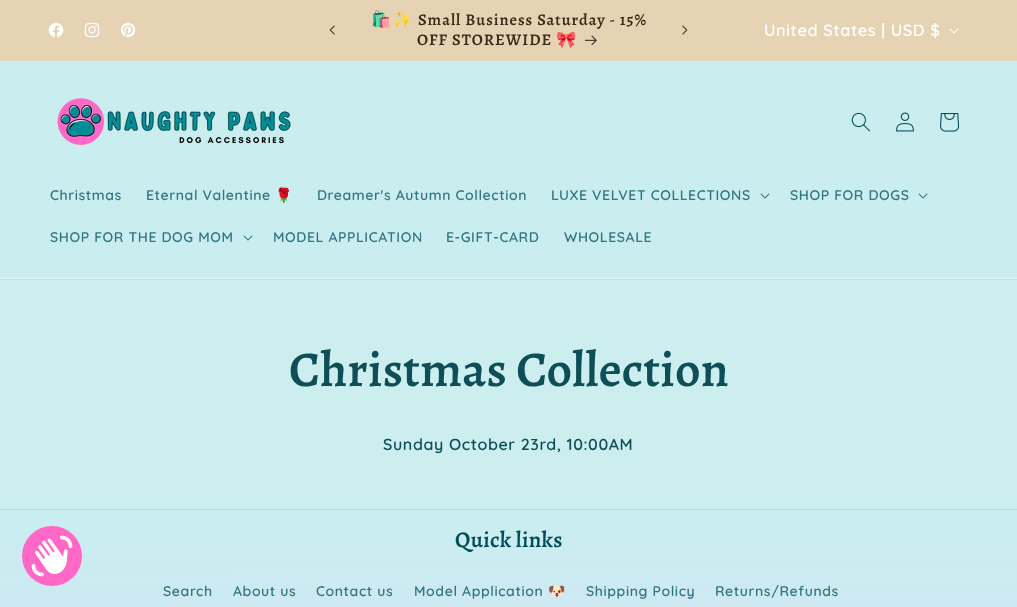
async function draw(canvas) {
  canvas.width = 1017
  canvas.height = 607
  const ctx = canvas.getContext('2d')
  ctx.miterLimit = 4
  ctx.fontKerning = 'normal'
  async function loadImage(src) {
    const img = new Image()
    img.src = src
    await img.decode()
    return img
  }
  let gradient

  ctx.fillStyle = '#cdeeef'
  ctx.fillRect(0, 0, 1017, 607)
  ctx.fillStyle = '#e6d3b3'
  ctx.fillRect(0, 0, 1017, 60)
  ctx.fillStyle = '#e8d7b9'
  ctx.fillRect(0, 60, 1017, 1)
  ctx.drawImage(await loadImage('image0.png'), 48, 22, 16, 16)
  ctx.drawImage(await loadImage('image1.png'), 84, 22, 16, 16)
  ctx.drawImage(await loadImage('image2.png'), 120, 22, 16, 16)
  ctx.drawImage(await loadImage('image3.png'), 329, 25, 6, 10)
  ctx.letterSpacing = '1px'
  ctx.font = 'bold 16.25px Noto Color Emoji'
  ctx.fillStyle = '#3a2a1a'
  ctx.fillText('🛍️✨', 371, 25)
  ctx.font = '600 16.25px Alegreya'
  ctx.fillText('Small Business Saturday - 15%', 418, 25)
  ctx.fillText('OFF STOREWIDE', 417, 45)
  ctx.font = 'bold 16.25px Noto Color Emoji'
  ctx.fillText('🎀', 556, 45)
  ctx.drawImage(await loadImage('image4.png'), 585, 35, 12, 11)
  ctx.drawImage(await loadImage('image5.png'), 682, 25, 6, 10)
  ctx.letterSpacing = '0.6px'
  ctx.font = '600 16.25px Quicksand'
  ctx.fillStyle = '#fff'
  ctx.fillText('United States | USD $', 764, 36)
  ctx.drawImage(await loadImage('image6.png'), 949, 28, 10, 6)
  ctx.fillStyle = '#bde1e3'
  ctx.fillRect(0, 279, 1017, 1)
  ctx.fillStyle = '#caeef0'
  ctx.fillRect(0, 61, 1017, 217)
  ctx.fillStyle = '#dff5f6'
  ctx.fillRect(0, 278, 1017, 1)
  ctx.drawImage(await loadImage('image7.png'), 57, 98, 234, 47)
  ctx.drawImage(await loadImage('image8.png'), 851, 112, 19, 20)
  ctx.drawImage(await loadImage('image9.png'), 896, 112, 18, 20)
  ctx.drawImage(await loadImage('image10.png'), 940, 113, 20, 19)
  ctx.font = '600 14px Quicksand'
  ctx.fillStyle = '#337580'
  ctx.fillText('Christmas', 50, 200)
  ctx.fillText('Eternal Valentine', 146, 200)
  ctx.font = 'bold 14px Noto Color Emoji'
  ctx.fillText('🌹', 275, 200)
  ctx.font = '600 14px Quicksand'
  ctx.fillText('Dreamer\'s Autumn Collection', 317, 200)
  ctx.fillText('LUXE VELVET COLLECTIONS', 551, 200)
  ctx.drawImage(await loadImage('image11.png'), 760, 193, 10, 6)
  ctx.fillText('SHOP FOR DOGS', 790, 200)
  ctx.drawImage(await loadImage('image11.png'), 918, 193, 10, 6)
  ctx.fillText('SHOP FOR THE DOG MOM', 50, 242)
  ctx.drawImage(await loadImage('image11.png'), 243, 235, 10, 6)
  ctx.fillText('MODEL APPLICATION', 273, 242)
  ctx.fillText('E-GIFT-CARD', 446, 242)
  ctx.fillText('WHOLESALE', 564, 242)
  ctx.letterSpacing = '0.25px'
  ctx.font = '600 50px Alegreya'
  ctx.fillStyle = '#0e4f57'
  ctx.fillText('Christmas Collection', 289, 386)
  ctx.letterSpacing = '0.6px'
  ctx.font = '600 16px Quicksand'
  ctx.fillText('Sunday October 23rd, 10:00AM', 383, 450)
  gradient = ctx.createLinearGradient(508, 510, 509, 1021)
  gradient.addColorStop(0, '#c9eef0')
  gradient.addColorStop(1, '#e3d4fb')
  ctx.fillStyle = gradient
  ctx.fillRect(0, 510, 1017, 97)
  ctx.fillStyle = '#ff68c7'
  ctx.beginPath()
  ctx.arc(52, 556, 30, 0, 2 * Math.PI)
  ctx.fill()
  ctx.drawImage(await loadImage('image12.png'), 31, 535, 42, 42)
  ctx.fillStyle = '#d1c9ee'
  ctx.fillRect(0, 509, 1017, 1)
  ctx.letterSpacing = '0.25px'
  ctx.font = '600 22.5px Alegreya'
  ctx.fillStyle = '#004e5a'
  ctx.fillText('Quick links', 455, 547)
  ctx.letterSpacing = '0.6px'
  ctx.font = '600 14px Quicksand'
  ctx.fillStyle = '#337580'
  ctx.fillText('Search', 163, 596)
  ctx.fillText('About us', 233, 596)
  ctx.fillText('Contact us', 316, 596)
  ctx.fillText('Model Application', 414, 596)
  ctx.font = 'bold 14px Noto Color Emoji'
  ctx.fillText('🐶', 548, 596)
  ctx.font = '600 14px Quicksand'
  ctx.fillText('Shipping Policy', 586, 596)
  ctx.fillText('Returns/Refunds', 715, 596)
}

draw(document.querySelector('canvas'))
